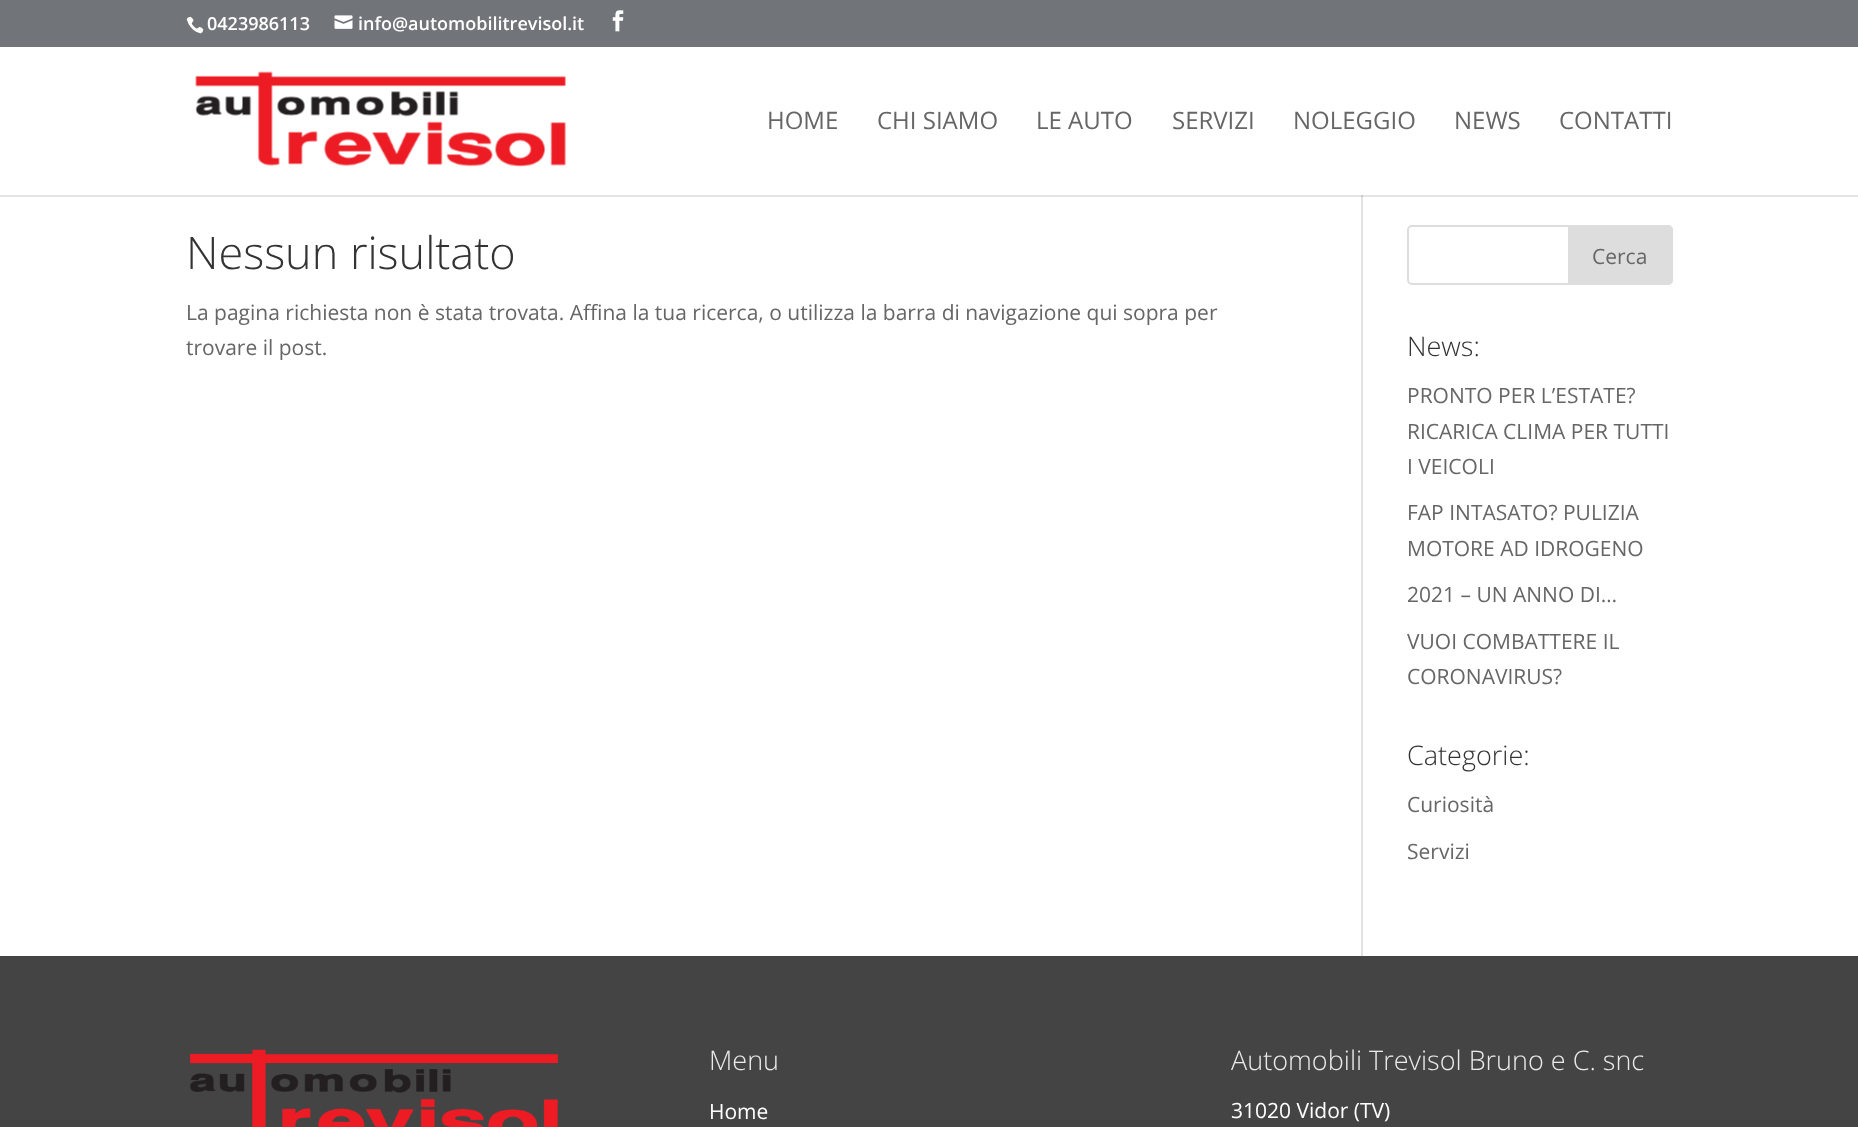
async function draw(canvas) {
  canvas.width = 1858
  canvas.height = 1127
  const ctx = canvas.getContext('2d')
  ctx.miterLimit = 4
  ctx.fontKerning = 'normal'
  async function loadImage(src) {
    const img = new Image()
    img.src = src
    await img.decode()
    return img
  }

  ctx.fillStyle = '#fff'
  ctx.fillRect(0, 0, 1858, 1127)
  ctx.fillStyle = '#717579'
  ctx.fillRect(0, 0, 1858, 47)
  ctx.drawImage(await loadImage('image0.png'), 186, 16, 18, 18)
  ctx.font = '600 18px Open Sans'
  ctx.fillStyle = '#fff'
  ctx.fillText('0423986113', 207, 30)
  ctx.drawImage(await loadImage('image1.png'), 334, 15, 19, 14)
  ctx.fillText('info@automobilitrevisol.it', 358, 30)
  ctx.drawImage(await loadImage('image2.png'), 612, 10, 12, 22)
  ctx.fillStyle = '#e2e2e2'
  ctx.fillRect(1361, 195, 2, 761)
  ctx.fillStyle = '#0000001a'
  ctx.beginPath()
  ctx.moveTo(0, 195)
  ctx.lineTo(0, 197)
  ctx.lineTo(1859, 197)
  ctx.lineTo(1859, 47)
  ctx.lineTo(1858, 47)
  ctx.lineTo(1858, 195)
  ctx.closePath()
  ctx.fill()
  ctx.drawImage(await loadImage('image3.png'), 195, 71, 371, 96)
  ctx.font = '24px Open Sans'
  ctx.fillStyle = '#666'
  ctx.fillText('HOME', 767, 129)
  ctx.fillText('CHI SIAMO', 877, 129)
  ctx.fillText('LE AUTO', 1036, 129)
  ctx.fillText('SERVIZI', 1172, 129)
  ctx.fillText('NOLEGGIO', 1293, 129)
  ctx.fillText('NEWS', 1454, 129)
  ctx.fillText('CONTATTI', 1559, 129)
  ctx.font = '300 45px Open Sans'
  ctx.fillStyle = '#333'
  ctx.fillText('Nessun risultato', 186, 269)
  ctx.font = '21px Open Sans'
  ctx.fillStyle = '#666'
  ctx.fillText('La pagina richiesta non è stata trovata. Affina la tua ricerca, o utilizza la barra di navigazione qui sopra per', 186, 320)
  ctx.fillText('trovare il post.', 186, 355)
  ctx.beginPath()
  ctx.roundRect(1408, 226, 264, 58, 4)
  ctx.strokeStyle = '#ddd'
  ctx.lineWidth = 2
  ctx.stroke()
  ctx.fillStyle = '#ddd'
  ctx.beginPath()
  ctx.roundRect(1569, 226, 103, 58, [0, 4, 4, 0])
  ctx.fill()
  ctx.stroke()
  ctx.fillStyle = '#666'
  ctx.fillText('Cerca', 1592, 264)
  ctx.font = '300 27px Open Sans'
  ctx.fillStyle = '#333'
  ctx.fillText('News:', 1407, 356)
  ctx.font = '21px Open Sans'
  ctx.fillStyle = '#666'
  ctx.fillText('PRONTO PER L’ESTATE?', 1407, 403)
  ctx.fillText('RICARICA CLIMA PER TUTTI', 1407, 439)
  ctx.fillText('I VEICOLI', 1407, 474)
  ctx.fillText('FAP INTASATO? PULIZIA', 1407, 520)
  ctx.fillText('MOTORE AD IDROGENO', 1407, 556)
  ctx.fillText('2021 – UN ANNO DI…', 1407, 602)
  ctx.fillText('VUOI COMBATTERE IL', 1407, 649)
  ctx.fillText('CORONAVIRUS?', 1407, 684)
  ctx.font = '300 27px Open Sans'
  ctx.fillStyle = '#333'
  ctx.fillText('Categorie:', 1407, 765)
  ctx.font = '21px Open Sans'
  ctx.fillStyle = '#666'
  ctx.fillText('Curiosità', 1407, 812)
  ctx.fillText('Servizi', 1407, 859)
  ctx.fillStyle = '#444'
  ctx.fillRect(0, 956, 1858, 171)
  ctx.drawImage(await loadImage('image4.png'), 189, 1049, 369, 78)
  ctx.font = '300 27px Open Sans'
  ctx.fillStyle = '#eaeaea'
  ctx.fillText('Menu', 709, 1070)
  ctx.font = '21px Open Sans'
  ctx.fillStyle = '#fff'
  ctx.fillText('Home', 709, 1119)
  ctx.font = '300 27px Open Sans'
  ctx.fillStyle = '#eaeaea'
  ctx.fillText('Automobili Trevisol Bruno e C. snc', 1231, 1070)
  ctx.font = '21px Open Sans'
  ctx.fillStyle = '#fff'
  ctx.fillText('31020 Vidor (TV)', 1231, 1118)
}

draw(document.querySelector('canvas'))
